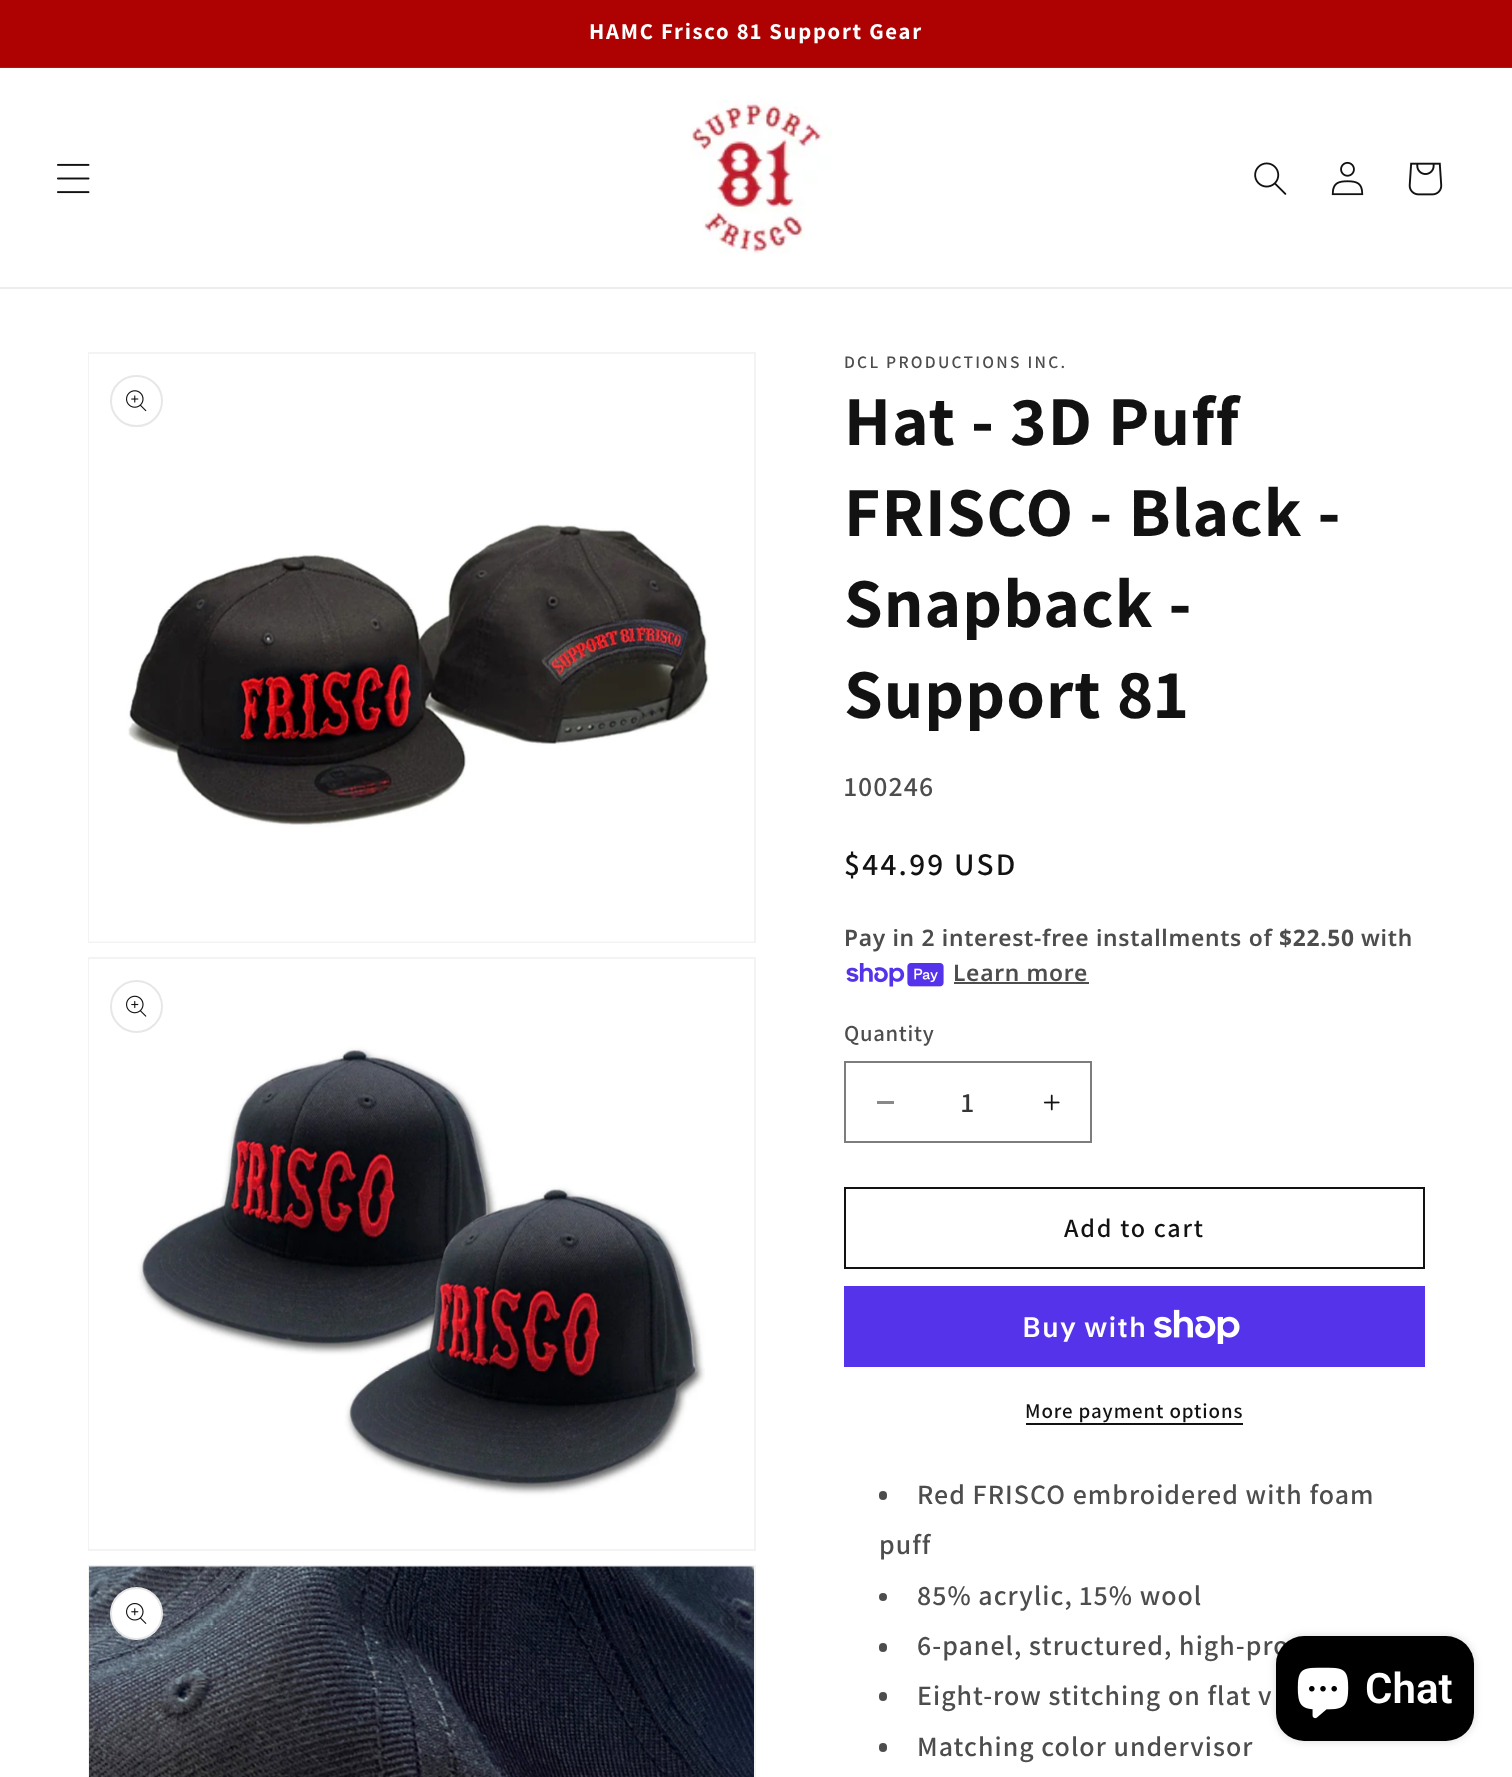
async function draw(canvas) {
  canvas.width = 1512
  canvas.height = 1777
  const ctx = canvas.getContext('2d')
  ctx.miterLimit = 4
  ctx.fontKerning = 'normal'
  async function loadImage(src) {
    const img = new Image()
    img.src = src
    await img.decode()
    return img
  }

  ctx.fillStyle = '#fff'
  ctx.fillRect(0, 0, 1512, 1777)
  ctx.fillStyle = '#ae0202'
  ctx.fillRect(0, 0, 1512, 67)
  ctx.fillStyle = '#b41616'
  ctx.fillRect(0, 67, 1512, 1)
  ctx.letterSpacing = '1.75px'
  ctx.font = 'bold 22.75px Assistant'
  ctx.fillStyle = '#fff'
  ctx.fillText('HAMC Frisco 81 Support Gear', 589, 39)
  ctx.fillStyle = '#ececec'
  ctx.fillRect(0, 287, 1512, 2)
  ctx.drawImage(await loadImage('image0.png'), 57, 163, 33, 31)
  ctx.drawImage(await loadImage('image1.png'), 690, 100, 142, 154)
  ctx.drawImage(await loadImage('image2.png'), 1254, 162, 33, 33)
  ctx.drawImage(await loadImage('image3.png'), 1331, 161, 33, 35)
  ctx.drawImage(await loadImage('image4.png'), 1408, 162, 35, 34)
  ctx.strokeStyle = '#f3f3f3'
  ctx.lineWidth = 2
  ctx.strokeRect(89, 353, 666, 589)
  ctx.drawImage(await loadImage('image5.png'), 89, 354, 665, 588)
  ctx.beginPath()
  ctx.roundRect(111, 376, 51, 50, 25)
  ctx.strokeStyle = '#e7e7e7'
  ctx.stroke()
  ctx.drawImage(await loadImage('image6.png'), 126, 390, 21, 22)
  ctx.strokeStyle = '#f3f3f3'
  ctx.strokeRect(89, 958, 666, 592)
  ctx.drawImage(await loadImage('image7.png'), 89, 959, 616, 590)
  ctx.beginPath()
  ctx.arc(136.5, 1006.5, 25.5, 0, 2 * Math.PI)
  ctx.strokeStyle = '#e7e7e7'
  ctx.stroke()
  ctx.drawImage(await loadImage('image8.png'), 126, 995, 21, 22)
  ctx.strokeStyle = '#f3f3f3'
  ctx.strokeRect(89, 1566, 666, 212)
  ctx.drawImage(await loadImage('image9.png'), 89, 1565, 665, 212)
  ctx.fillStyle = '#fff'
  ctx.beginPath()
  ctx.arc(136.5, 1613.5, 26.5, 0, 2 * Math.PI)
  ctx.fill()
  ctx.beginPath()
  ctx.arc(136.5, 1613.5, 25.5, 0, 2 * Math.PI)
  ctx.strokeStyle = '#1212121a'
  ctx.stroke()
  ctx.drawImage(await loadImage('image10.png'), 126, 1603, 21, 21)
  ctx.letterSpacing = '2.25px'
  ctx.font = '600 17.5px Assistant'
  ctx.fillStyle = '#4d4d4d'
  ctx.fillText('DCL PRODUCTIONS INC.', 844, 368)
  ctx.letterSpacing = '1.05px'
  ctx.font = 'bold 70px Assistant'
  ctx.fillStyle = '#121212'
  ctx.fillText('Hat - 3D Puff', 844, 445)
  ctx.fillText('FRISCO - Black -', 844, 536)
  ctx.fillText('Snapback -', 844, 627)
  ctx.fillText('Support 81', 844, 718)
  ctx.font = '600 28px Assistant'
  ctx.fillStyle = '#4d4d4d'
  ctx.fillText('100246', 844, 796)
  ctx.letterSpacing = '2.25px'
  ctx.font = '600 31.5px Assistant'
  ctx.fillStyle = '#121212'
  ctx.fillText('$44.99 USD', 844, 875)
  ctx.letterSpacing = '0.7px'
  ctx.font = '600 22.75px Noto Sans'
  ctx.fillStyle = '#4d4d4d'
  ctx.fillText('Pay in 2 interest-free installments of', 844, 946)
  ctx.font = 'bold 22.75px Noto Sans'
  ctx.fillText('$22.50', 1279, 946)
  ctx.font = '600 22.75px Noto Sans'
  ctx.fillText('with', 1361, 946)
  ctx.drawImage(await loadImage('image11.png'), 846, 963, 98, 24)
  ctx.fillText('Learn more', 953, 981)
  ctx.fillRect(954, 982, 135, 2)
  ctx.font = '600 22.75px Assistant'
  ctx.fillText('Quantity', 844, 1041)
  ctx.fillStyle = '#898989'
  ctx.fillRect(877, 1101, 17, 3)
  ctx.drawImage(await loadImage('image12.png'), 1043, 1094, 17, 17)
  ctx.strokeStyle = '#7d7d7d'
  ctx.strokeRect(845, 1062, 246, 80)
  ctx.letterSpacing = '0px'
  ctx.font = '600 28px Assistant'
  ctx.fillStyle = '#363636'
  ctx.fillText('1', 961, 1112)
  ctx.strokeStyle = '#121212'
  ctx.strokeRect(845, 1188, 579, 80)
  ctx.letterSpacing = '1.75px'
  ctx.font = '600 26.25px Assistant'
  ctx.fillStyle = '#121212'
  ctx.fillText('Add to cart', 1064, 1237)
  ctx.fillStyle = '#5433eb'
  ctx.fillRect(844, 1286, 581, 81)
  ctx.letterSpacing = '1.05px'
  ctx.font = '600 28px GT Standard'
  ctx.fillStyle = '#fff'
  ctx.fillText('Buy with', 1022, 1337)
  ctx.drawImage(await loadImage('image13.png'), 1154, 1309, 86, 35)
  ctx.letterSpacing = '0.9px'
  ctx.font = '600 21px Assistant'
  ctx.fillStyle = '#121212'
  ctx.fillText('More payment options', 1025, 1418)
  ctx.fillRect(1026, 1423, 217, 2)
  ctx.fillStyle = '#4d4d4d'
  ctx.beginPath()
  ctx.roundRect(879, 1491, 8, 9, 4)
  ctx.fill()
  ctx.letterSpacing = '1.05px'
  ctx.font = '600 28px Assistant'
  ctx.fillText('Red FRISCO embroidered with foam', 917, 1504)
  ctx.fillText('puff', 879, 1554)
  ctx.beginPath()
  ctx.arc(883, 1597, 4, 0, 2 * Math.PI)
  ctx.fill()
  ctx.fillText('85% acrylic, 15% wool', 917, 1605)
  ctx.beginPath()
  ctx.roundRect(879, 1643, 8, 9, 4)
  ctx.fill()
  ctx.fillText('6-panel, structured, high-pro', 917, 1655)
  ctx.beginPath()
  ctx.roundRect(879, 1692, 8, 9, 4)
  ctx.fill()
  ctx.fillText('Eight-row stitching on flat v', 917, 1705)
  ctx.beginPath()
  ctx.roundRect(879, 1743, 8, 9, 4)
  ctx.fill()
  ctx.fillText('Matching color undervisor', 917, 1756)
  ctx.fillStyle = '#00000026'
  ctx.filter = 'blur(4.5px)'
  ctx.beginPath()
  ctx.roundRect(1276, 1636, 198, 105, 28)
  ctx.fill()
  ctx.filter = 'none'
  ctx.fillStyle = '#000'
  ctx.beginPath()
  ctx.roundRect(1276, 1636, 198, 105, 28)
  ctx.fill()
  ctx.drawImage(await loadImage('image14.png'), 1297, 1667, 52, 52)
  ctx.letterSpacing = '0px'
  ctx.font = '600 42px Roboto'
  ctx.fillStyle = '#fff'
  ctx.fillText('Chat', 1365, 1703)
}

draw(document.querySelector('canvas'))
